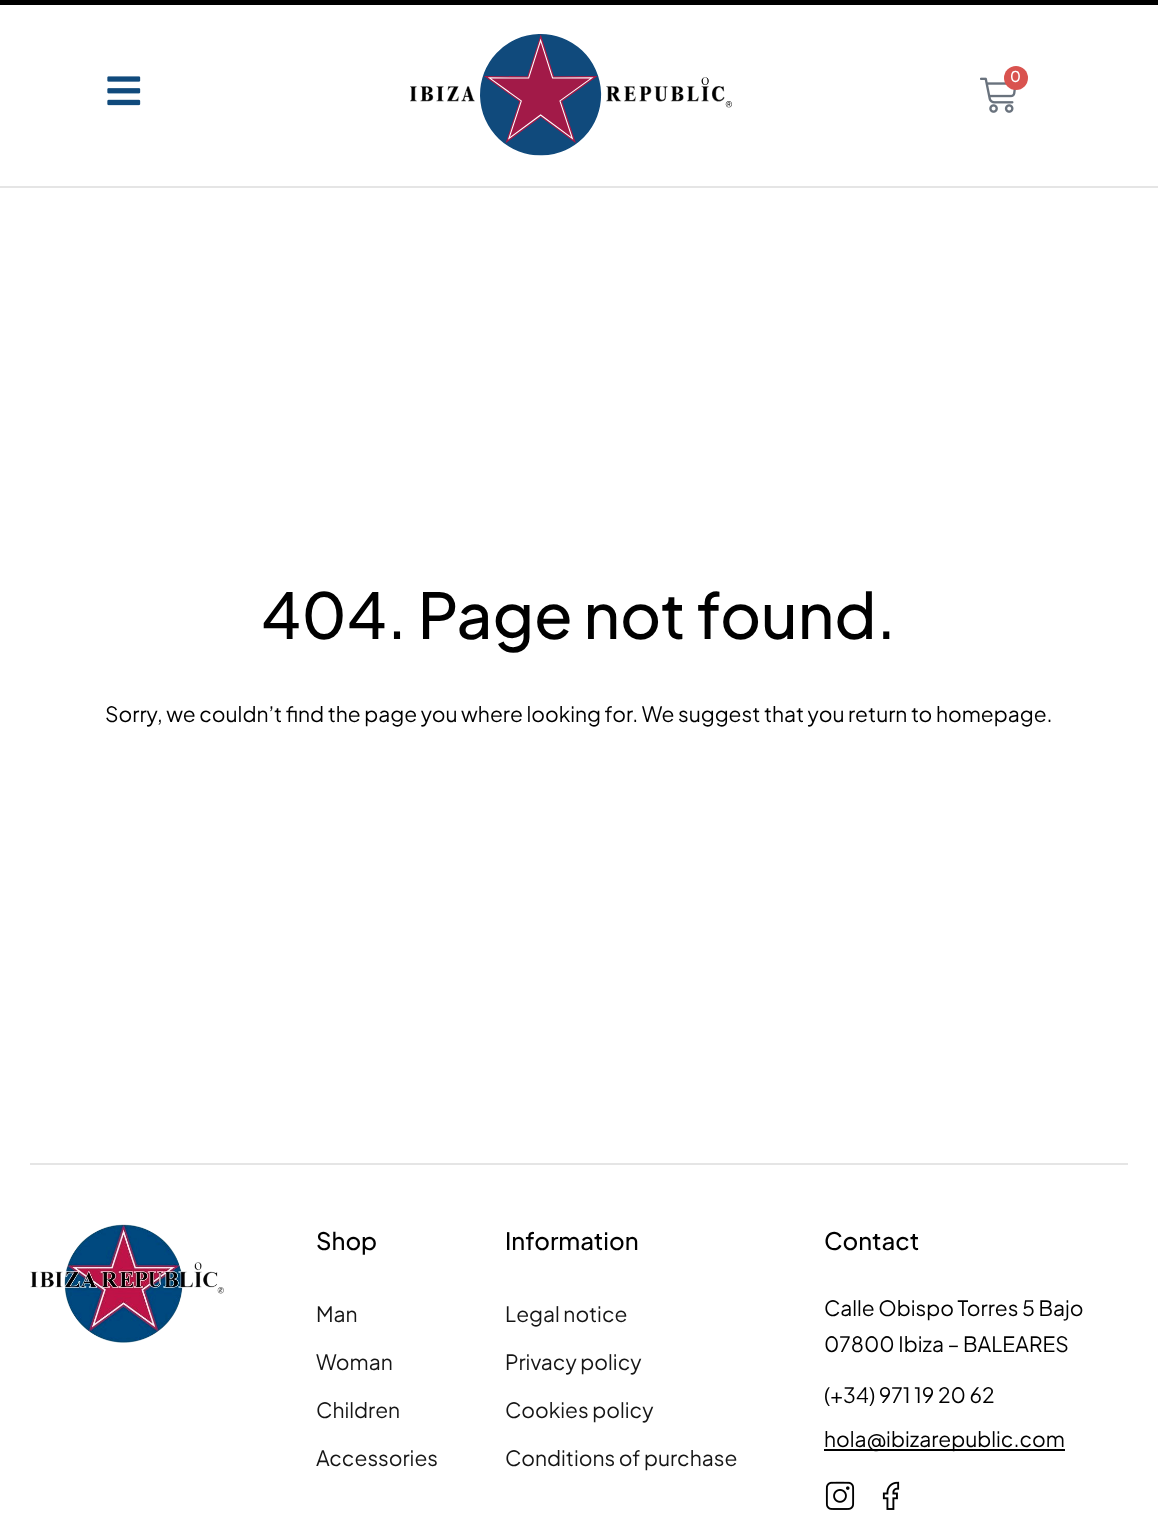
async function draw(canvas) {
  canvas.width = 1158
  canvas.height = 1524
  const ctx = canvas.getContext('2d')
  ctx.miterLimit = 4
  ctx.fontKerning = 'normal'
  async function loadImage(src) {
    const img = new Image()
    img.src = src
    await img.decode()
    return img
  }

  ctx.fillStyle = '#fff'
  ctx.fillRect(0, 0, 1158, 1524)
  ctx.fillStyle = '#000'
  ctx.fillRect(0, 0, 1158, 5)
  ctx.fillStyle = '#e5e5e5'
  ctx.fillRect(0, 186, 1158, 2)
  ctx.drawImage(await loadImage('image0.png'), 107, 76, 34, 30)
  ctx.drawImage(await loadImage('image1.png'), 410, 34, 322, 122)
  ctx.drawImage(await loadImage('image2.png'), 980, 77, 36, 36)
  ctx.fillStyle = '#d9534f'
  ctx.beginPath()
  ctx.arc(1016, 78, 12, 0, 2 * Math.PI)
  ctx.fill()
  ctx.font = '500 15px Plus Jakarta Sans'
  ctx.fillStyle = '#fff'
  ctx.fillText('0', 1010, 82)
  ctx.font = '500 63px Plus Jakarta Sans'
  ctx.fillStyle = '#000'
  ctx.fillText('404. Page not found.', 261, 639)
  ctx.font = '21px Plus Jakarta Sans'
  ctx.fillText('Sorry, we couldn’t find the page you where looking for. We suggest that you return to homepage.', 105, 722)
  ctx.fillStyle = '#e5e5e5'
  ctx.fillRect(30, 1163, 1098, 2)
  ctx.drawImage(await loadImage('image3.png'), 30, 1224, 194, 119)
  ctx.font = '500 24px Plus Jakarta Sans'
  ctx.fillStyle = '#000'
  ctx.fillText('Shop', 316, 1250)
  ctx.font = '21px Plus Jakarta Sans'
  ctx.fillStyle = '#161616'
  ctx.fillText('Man', 316, 1322)
  ctx.fillText('Woman', 316, 1370)
  ctx.fillText('Children', 316, 1418)
  ctx.fillText('Accessories', 316, 1466)
  ctx.font = '500 24px Plus Jakarta Sans'
  ctx.fillStyle = '#000'
  ctx.fillText('Information', 505, 1250)
  ctx.font = '21px Plus Jakarta Sans'
  ctx.fillStyle = '#161616'
  ctx.fillText('Legal notice', 505, 1322)
  ctx.fillText('Privacy policy', 505, 1370)
  ctx.fillText('Cookies policy', 505, 1418)
  ctx.fillText('Conditions of purchase', 505, 1466)
  ctx.font = '500 24px Plus Jakarta Sans'
  ctx.fillStyle = '#000'
  ctx.fillText('Contact', 824, 1250)
  ctx.font = '21px Plus Jakarta Sans'
  ctx.fillText('Calle Obispo Torres 5 Bajo', 824, 1316)
  ctx.fillText('07800 Ibiza – BALEARES', 824, 1352)
  ctx.fillText('(+34) 971 19 20 62', 824, 1403)
  ctx.fillRect(824, 1449, 241, 2)
  ctx.fillText('hola@ibizarepublic.com', 824, 1447)
  ctx.drawImage(await loadImage('image4.png'), 825, 1481, 30, 29)
  ctx.drawImage(await loadImage('image5.png'), 882, 1481, 18, 29)
}

draw(document.querySelector('canvas'))
